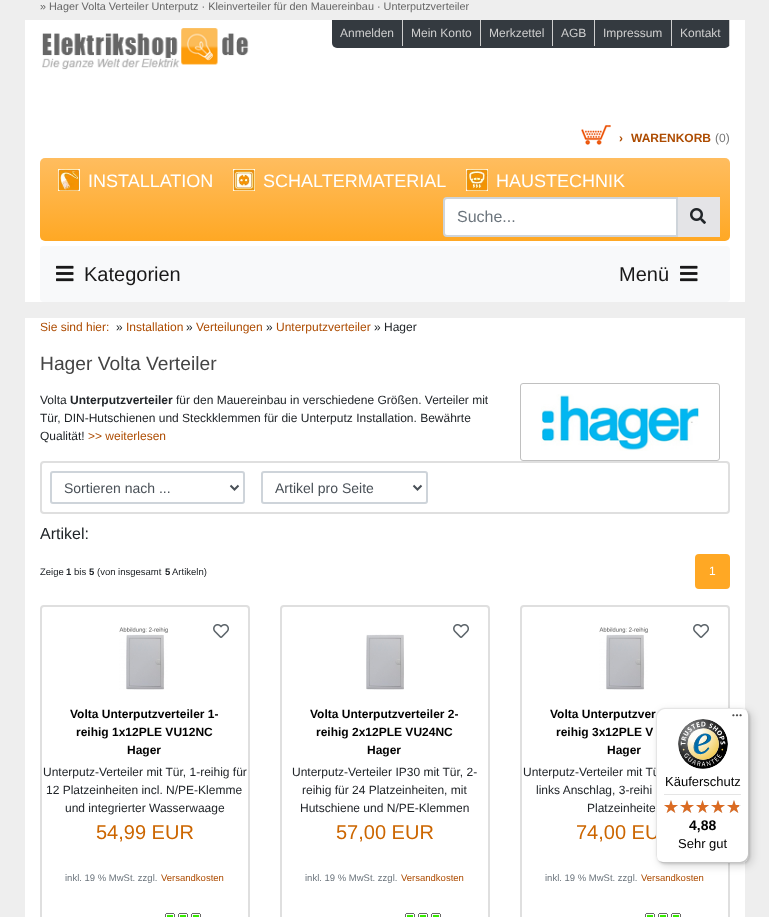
async function draw(canvas) {
  canvas.width = 769
  canvas.height = 917
  const ctx = canvas.getContext('2d')
  ctx.miterLimit = 4
  ctx.fontKerning = 'normal'
  async function loadImage(src) {
    const img = new Image()
    img.src = src
    await img.decode()
    return img
  }
  let gradient

  ctx.fillStyle = '#eee'
  ctx.fillRect(0, 0, 769, 917)
  ctx.font = '10.85px Liberation Sans'
  ctx.fillStyle = '#666'
  ctx.fillText('» Hager Volta Verteiler Unterputz · Kleinverteiler für den Mauereinbau · Unterputzverteiler', 40, 10)
  ctx.fillStyle = '#fff'
  ctx.fillRect(25, 20, 720, 282)
  ctx.drawImage(await loadImage('image0.png'), 42, 28, 207, 42)
  ctx.fillStyle = '#343a40'
  ctx.beginPath()
  ctx.roundRect(332, 20, 398, 28, [0, 0, 5, 5])
  ctx.fill()
  ctx.fillStyle = '#cecece'
  ctx.fillRect(402, 20, 1, 26)
  ctx.font = '12px Liberation Sans'
  ctx.fillText('Anmelden', 340, 37)
  ctx.fillRect(480, 20, 1, 26)
  ctx.fillText('Mein Konto', 411, 37)
  ctx.fillRect(552, 20, 1, 26)
  ctx.fillText('Merkzettel', 489, 37)
  ctx.fillRect(594, 20, 1, 26)
  ctx.fillText('AGB', 561, 37)
  ctx.fillRect(671, 20, 1, 26)
  ctx.fillText('Impressum', 603, 37)
  ctx.fillRect(729, 20, 1, 26)
  ctx.fillText('Kontakt', 680, 37)
  ctx.drawImage(await loadImage('image1.png'), 581, 125, 30, 20)
  ctx.font = 'bold 12px Liberation Sans'
  ctx.fillStyle = '#ad4c02'
  ctx.fillText('›', 619, 142)
  ctx.fillText('WARENKORB', 631, 142)
  ctx.font = '12px Liberation Sans'
  ctx.fillStyle = '#777'
  ctx.fillText('(0)', 715, 142)
  gradient = ctx.createLinearGradient(385, 158, 385, 241)
  gradient.addColorStop(0, '#ffbd5f')
  gradient.addColorStop(1, '#ffa824')
  ctx.fillStyle = gradient
  ctx.beginPath()
  ctx.roundRect(40, 158, 690, 83, 5)
  ctx.fill()
  ctx.drawImage(await loadImage('image2.png'), 58, 169, 22, 22)
  ctx.font = '18px Liberation Sans'
  ctx.fillStyle = '#fff'
  ctx.fillText('INSTALLATION', 88, 187)
  ctx.drawImage(await loadImage('image3.png'), 233, 169, 22, 22)
  ctx.fillText('SCHALTERMATERIAL', 263, 187)
  ctx.drawImage(await loadImage('image4.png'), 466, 169, 22, 22)
  ctx.fillText('HAUSTECHNIK', 496, 187)
  ctx.beginPath()
  ctx.roundRect(444, 198, 233, 38, [3, 0, 0, 3])
  ctx.fill()
  ctx.strokeStyle = '#ced4da'
  ctx.lineWidth = 2
  ctx.stroke()
  ctx.font = '16px Liberation Sans'
  ctx.fillStyle = '#6c757d'
  ctx.fillText('Suche...', 457, 222)
  ctx.fillStyle = '#e4e4e7'
  ctx.fillRect(678, 197, 42, 40)
  ctx.drawImage(await loadImage('image5.png'), 690, 208, 16, 16)
  ctx.fillStyle = '#f8f9fa'
  ctx.beginPath()
  ctx.roundRect(40, 246, 690, 56, 4)
  ctx.fill()
  ctx.drawImage(await loadImage('image6.png'), 56, 265, 18, 17)
  ctx.font = '20px Liberation Sans'
  ctx.fillStyle = '#191919'
  ctx.fillText('Kategorien', 84, 281)
  ctx.fillText('Menü', 619, 281)
  ctx.drawImage(await loadImage('image6.png'), 680, 265, 18, 17)
  ctx.fillStyle = '#fff'
  ctx.fillRect(25, 318, 720, 599)
  ctx.font = '12px Liberation Sans'
  ctx.fillStyle = '#ad4c02'
  ctx.fillText('Sie sind hier:', 40, 331)
  ctx.fillStyle = '#212529'
  ctx.fillText('»', 116, 331)
  ctx.fillStyle = '#ad4c02'
  ctx.fillText('Installation', 126, 331)
  ctx.fillStyle = '#212529'
  ctx.fillText('»', 186, 331)
  ctx.fillStyle = '#ad4c02'
  ctx.fillText('Verteilungen', 196, 331)
  ctx.fillStyle = '#212529'
  ctx.fillText('»', 266, 331)
  ctx.fillStyle = '#ad4c02'
  ctx.fillText('Unterputzverteiler', 276, 331)
  ctx.fillStyle = '#212529'
  ctx.fillText('» Hager', 374, 331)
  ctx.font = '19.25px Liberation Sans'
  ctx.fillStyle = '#444'
  ctx.fillText('Hager Volta Verteiler', 40, 370)
  ctx.font = '12px Liberation Sans'
  ctx.fillStyle = '#212529'
  ctx.fillText('Volta', 40, 404)
  ctx.font = 'bold 12px Liberation Sans'
  ctx.fillText('Unterputzverteiler', 70, 404)
  ctx.font = '12px Liberation Sans'
  ctx.fillText('für den Mauereinbau in verschiedene Größen. Verteiler mit', 176, 404)
  ctx.fillText('Tür, DIN-Hutschienen und Steckklemmen für die Unterputz Installation. Bewährte', 40, 422)
  ctx.fillText('Qualität!', 40, 440)
  ctx.fillStyle = '#ad4c02'
  ctx.fillText('>> weiterlesen', 88, 440)
  ctx.beginPath()
  ctx.roundRect(520.5, 383.5, 199, 77, 2.5)
  ctx.strokeStyle = '#c0c0c0'
  ctx.lineWidth = 1
  ctx.stroke()
  ctx.drawImage(await loadImage('image7.png'), 541, 394, 159, 57)
  ctx.beginPath()
  ctx.roundRect(41, 462, 688, 51, 3)
  ctx.strokeStyle = '#dfdfdf'
  ctx.lineWidth = 2
  ctx.stroke()
  ctx.beginPath()
  ctx.roundRect(51, 472, 193, 31, 2)
  ctx.strokeStyle = '#ced4da'
  ctx.stroke()
  ctx.beginPath()
  ctx.moveTo(230.5, 485.5)
  ctx.lineTo(234.5, 489.5)
  ctx.lineTo(238.5, 485.5)
  ctx.strokeStyle = '#495057'
  ctx.stroke()
  ctx.font = '14px Liberation Sans'
  ctx.fillStyle = '#495057'
  ctx.fillText('Sortieren nach ...', 64, 493)
  ctx.beginPath()
  ctx.roundRect(262, 472, 165, 31, 2)
  ctx.strokeStyle = '#ced4da'
  ctx.stroke()
  ctx.beginPath()
  ctx.moveTo(413.5, 485.5)
  ctx.lineTo(417.5, 489.5)
  ctx.lineTo(421.5, 485.5)
  ctx.strokeStyle = '#495057'
  ctx.stroke()
  ctx.fillText('Artikel pro Seite', 275, 493)
  ctx.font = '16px Liberation Sans'
  ctx.fillStyle = '#212529'
  ctx.fillText('Artikel:', 40, 539)
  ctx.font = '9.5px Liberation Sans'
  ctx.fillText('Zeige', 40, 575)
  ctx.font = 'bold 9.5px Liberation Sans'
  ctx.fillText('1', 66, 575)
  ctx.font = '9.5px Liberation Sans'
  ctx.fillText('bis', 74, 575)
  ctx.font = 'bold 9.5px Liberation Sans'
  ctx.fillText('5', 89, 575)
  ctx.font = '9.5px Liberation Sans'
  ctx.fillText('(von insgesamt', 97, 575)
  ctx.font = 'bold 9.5px Liberation Sans'
  ctx.fillText('5', 165, 575)
  ctx.font = '9.5px Liberation Sans'
  ctx.fillText('Artikeln)', 172, 575)
  ctx.fillStyle = '#ffa824'
  ctx.beginPath()
  ctx.roundRect(696, 555, 33, 33, 3)
  ctx.fill()
  ctx.strokeStyle = '#ffa824'
  ctx.stroke()
  ctx.font = '12px Liberation Sans'
  ctx.fillStyle = '#fff'
  ctx.fillText('1', 709, 575)
  ctx.beginPath()
  ctx.roundRect(41, 606, 208, 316, 3)
  ctx.strokeStyle = '#dfdfdf'
  ctx.stroke()
  ctx.drawImage(await loadImage('image8.png'), 213, 624, 16, 14)
  ctx.drawImage(await loadImage('image9.png'), 165, 913, 36, 4)
  ctx.drawImage(await loadImage('image10.png'), 119, 627, 49, 63)
  ctx.font = 'bold 12px Liberation Sans'
  ctx.fillStyle = '#000'
  ctx.fillText('Volta Unterputzverteiler 1-', 70, 718)
  ctx.fillText('reihig 1x12PLE VU12NC', 76, 736)
  ctx.fillText('Hager', 127, 754)
  ctx.font = '12px Liberation Sans'
  ctx.fillStyle = '#212529'
  ctx.fillText('Unterputz-Verteiler mit Tür, 1-reihig für', 43, 776)
  ctx.fillText('12 Platzeinheiten incl. N/PE-Klemme', 46, 794)
  ctx.fillText('und integrierter Wasserwaage', 65, 812)
  ctx.font = '20px Liberation Sans'
  ctx.fillStyle = '#c60'
  ctx.fillText('54,99 EUR', 96, 839)
  ctx.font = '9.5px Liberation Sans'
  ctx.fillStyle = '#6c757d'
  ctx.fillText('inkl. 19 % MwSt. zzgl.', 65, 881)
  ctx.fillStyle = '#ad4c02'
  ctx.fillText('Versandkosten', 161, 881)
  ctx.beginPath()
  ctx.roundRect(281, 606, 208, 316, 3)
  ctx.stroke()
  ctx.drawImage(await loadImage('image8.png'), 453, 624, 16, 14)
  ctx.drawImage(await loadImage('image9.png'), 405, 913, 36, 4)
  ctx.drawImage(await loadImage('image11.png'), 366, 634, 38, 56)
  ctx.font = 'bold 12px Liberation Sans'
  ctx.fillStyle = '#000'
  ctx.fillText('Volta Unterputzverteiler 2-', 310, 718)
  ctx.fillText('reihig 2x12PLE VU24NC', 316, 736)
  ctx.fillText('Hager', 367, 754)
  ctx.font = '12px Liberation Sans'
  ctx.fillStyle = '#212529'
  ctx.fillText('Unterputz-Verteiler IP30 mit Tür, 2-', 292, 776)
  ctx.fillText('reihig für 24 Platzeinheiten, mit', 302, 794)
  ctx.fillText('Hutschiene und N/PE-Klemmen', 300, 812)
  ctx.font = '20px Liberation Sans'
  ctx.fillStyle = '#c60'
  ctx.fillText('57,00 EUR', 336, 839)
  ctx.font = '9.5px Liberation Sans'
  ctx.fillStyle = '#6c757d'
  ctx.fillText('inkl. 19 % MwSt. zzgl.', 305, 881)
  ctx.fillStyle = '#ad4c02'
  ctx.fillText('Versandkosten', 401, 881)
  ctx.beginPath()
  ctx.roundRect(521, 606, 208, 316, 3)
  ctx.stroke()
  ctx.drawImage(await loadImage('image10.png'), 599, 627, 49, 63)
  ctx.font = 'bold 12px Liberation Sans'
  ctx.fillStyle = '#000'
  ctx.fillText('Volta Unterputzver', 550, 718)
  ctx.fillText('reihig 3x12PLE V', 556, 736)
  ctx.fillText('Hager', 607, 754)
  ctx.drawImage(await loadImage('image8.png'), 693, 624, 16, 14)
  ctx.drawImage(await loadImage('image9.png'), 645, 913, 36, 4)
  ctx.font = '12px Liberation Sans'
  ctx.fillStyle = '#212529'
  ctx.fillText('Unterputz-Verteiler mit Tü', 523, 776)
  ctx.fillText('links Anschlag, 3-reihi', 536, 794)
  ctx.fillText('Platzeinheite', 587, 812)
  ctx.font = '20px Liberation Sans'
  ctx.fillStyle = '#c60'
  ctx.fillText('74,00 EU', 576, 839)
  ctx.font = '9.5px Liberation Sans'
  ctx.fillStyle = '#6c757d'
  ctx.fillText('inkl. 19 % MwSt. zzgl.', 545, 881)
  ctx.fillStyle = '#ad4c02'
  ctx.fillText('Versandkosten', 641, 881)
  ctx.fillStyle = '#00000026'
  ctx.filter = 'blur(4px)'
  ctx.beginPath()
  ctx.roundRect(659, 711, 93, 155, 8)
  ctx.fill()
  ctx.filter = 'none'
  ctx.filter = 'blur(1px)'
  ctx.beginPath()
  ctx.roundRect(657, 709, 93, 155, 8)
  ctx.fill()
  ctx.filter = 'none'
  ctx.fillStyle = '#fff'
  ctx.beginPath()
  ctx.roundRect(656, 708, 93, 155, 8)
  ctx.fill()
  ctx.fillStyle = '#e5e5e5'
  ctx.beginPath()
  ctx.moveTo(665, 709)
  ctx.lineTo(742, 709)
  ctx.bezierCurveTo(744, 709, 746, 710, 748, 712)
  ctx.bezierCurveTo(746, 710, 744, 708, 741, 708)
  ctx.lineTo(664, 708)
  ctx.bezierCurveTo(660, 708, 656, 712, 656, 716)
  ctx.lineTo(656, 855)
  ctx.bezierCurveTo(656, 858, 658, 860, 660, 862)
  ctx.bezierCurveTo(658, 860, 657, 858, 657, 856)
  ctx.lineTo(657, 717)
  ctx.bezierCurveTo(657, 713, 661, 709, 665, 709)
  ctx.closePath()
  ctx.fill()
  ctx.fillStyle = '#00000033'
  ctx.beginPath()
  ctx.moveTo(657, 859)
  ctx.bezierCurveTo(659, 861, 661, 863, 664, 863)
  ctx.lineTo(741, 863)
  ctx.bezierCurveTo(745, 863, 749, 859, 749, 855)
  ctx.lineTo(749, 716)
  ctx.bezierCurveTo(749, 713, 747, 711, 745, 709)
  ctx.bezierCurveTo(747, 711, 748, 713, 748, 715)
  ctx.lineTo(748, 854)
  ctx.bezierCurveTo(748, 858, 744, 862, 740, 862)
  ctx.lineTo(663, 862)
  ctx.bezierCurveTo(661, 862, 659, 861, 657, 859)
  ctx.closePath()
  ctx.fill()
  ctx.fillStyle = '#32323233'
  ctx.beginPath()
  ctx.moveTo(658, 860)
  ctx.bezierCurveTo(659, 862, 662, 863, 664, 863)
  ctx.lineTo(741, 863)
  ctx.bezierCurveTo(745, 863, 749, 859, 749, 855)
  ctx.lineTo(749, 716)
  ctx.bezierCurveTo(749, 714, 748, 711, 746, 710)
  ctx.bezierCurveTo(747, 711, 748, 713, 748, 715)
  ctx.lineTo(748, 854)
  ctx.bezierCurveTo(748, 859, 745, 862, 740, 862)
  ctx.lineTo(663, 862)
  ctx.bezierCurveTo(661, 862, 659, 861, 658, 860)
  ctx.closePath()
  ctx.fill()
  ctx.fillStyle = '#ffffff4d'
  ctx.beginPath()
  ctx.moveTo(748, 716)
  ctx.bezierCurveTo(748, 711, 745, 708, 740, 708)
  ctx.lineTo(741, 708)
  ctx.bezierCurveTo(745, 708, 749, 712, 749, 716)
  ctx.lineTo(749, 855)
  ctx.bezierCurveTo(749, 859, 745, 863, 741, 863)
  ctx.lineTo(664, 863)
  ctx.bezierCurveTo(660, 863, 656, 859, 656, 855)
  ctx.lineTo(656, 854)
  ctx.bezierCurveTo(656, 859, 659, 862, 664, 862)
  ctx.lineTo(740, 862)
  ctx.bezierCurveTo(745, 862, 748, 859, 748, 854)
  ctx.closePath()
  ctx.fill()
  ctx.drawImage(await loadImage('image12.png'), 732, 714, 10, 3)
  ctx.drawImage(await loadImage('image13.png'), 678, 719, 50, 50)
  ctx.font = '13px Liberation Sans'
  ctx.fillStyle = '#000'
  ctx.fillText('Käuferschutz', 665, 786)
  ctx.fillStyle = '#e5e5e5'
  ctx.fillRect(664, 794, 77, 1)
  ctx.drawImage(await loadImage('image14.png'), 664, 800, 14, 13)
  ctx.drawImage(await loadImage('image14.png'), 680, 800, 14, 13)
  ctx.drawImage(await loadImage('image15.png'), 696, 800, 13, 13)
  ctx.drawImage(await loadImage('image14.png'), 711, 800, 14, 13)
  ctx.drawImage(await loadImage('image14.png'), 727, 800, 14, 13)
  ctx.drawImage(await loadImage('image16.png'), 664, 800, 14, 13)
  ctx.drawImage(await loadImage('image16.png'), 680, 800, 14, 13)
  ctx.drawImage(await loadImage('image17.png'), 696, 800, 13, 13)
  ctx.drawImage(await loadImage('image16.png'), 711, 800, 14, 13)
  ctx.drawImage(await loadImage('image18.png'), 727, 800, 12, 13)
  ctx.font = 'bold 14px Liberation Sans'
  ctx.fillStyle = '#000'
  ctx.fillText('4,88', 689, 830)
  ctx.font = '13px Liberation Sans'
  ctx.fillText('Sehr gut', 678, 848)
}

draw(document.querySelector('canvas'))
